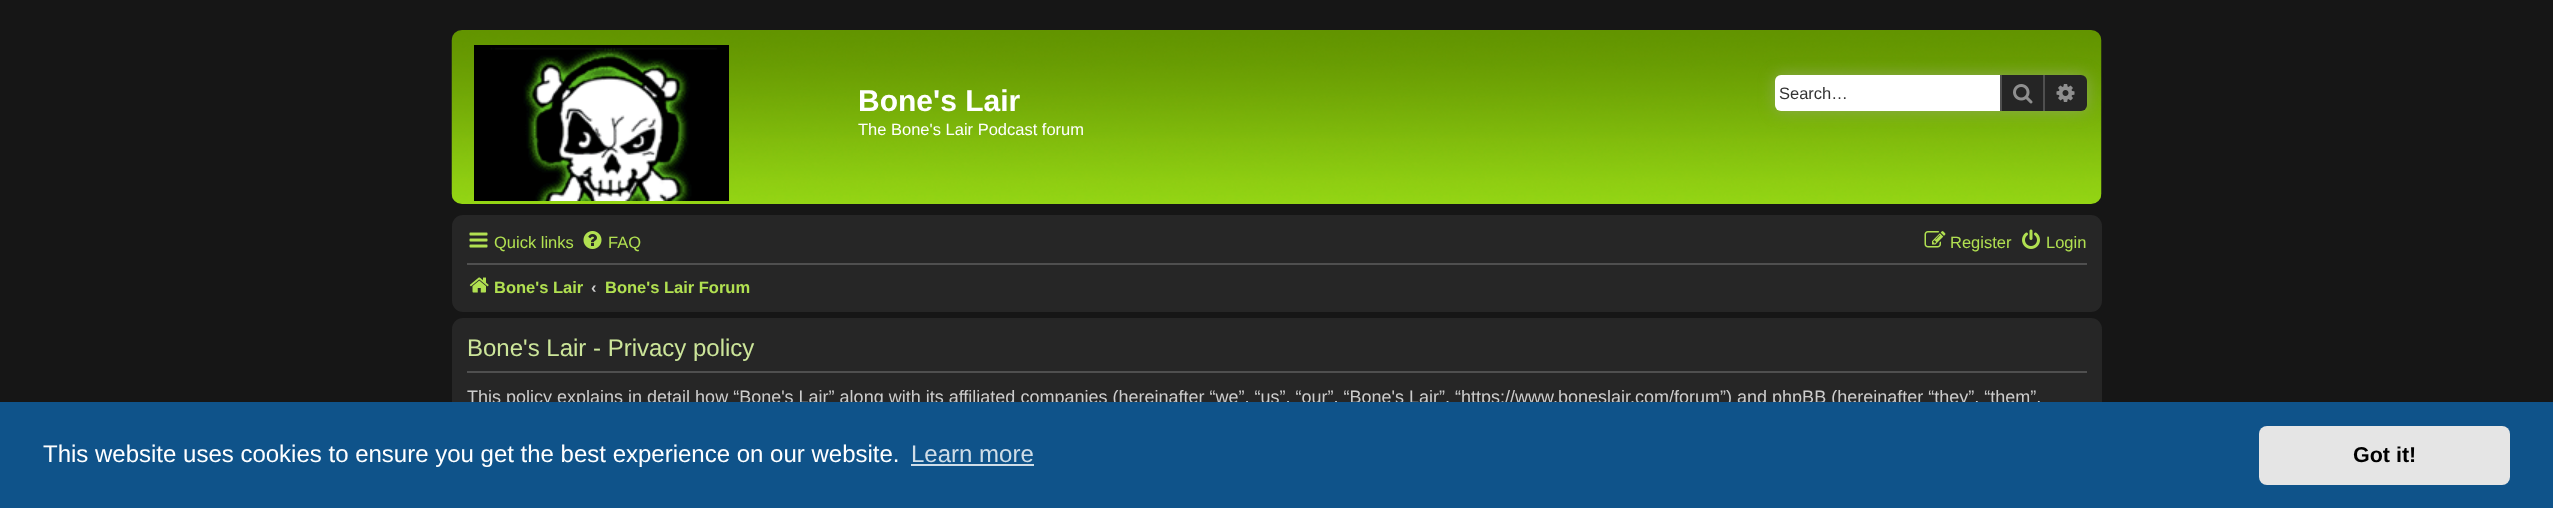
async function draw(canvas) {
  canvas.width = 2553
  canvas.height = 508
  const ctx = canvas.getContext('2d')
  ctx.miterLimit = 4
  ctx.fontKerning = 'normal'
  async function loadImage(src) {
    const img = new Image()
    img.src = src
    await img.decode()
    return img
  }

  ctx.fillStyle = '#161616'
  ctx.fillRect(0, 0, 2553, 508)
  ctx.drawImage(await loadImage('image0.png'), 451, 30, 1651, 174)
  ctx.drawImage(await loadImage('image1.png'), 474, 45, 255, 156)
  ctx.font = 'bold 30px Liberation Sans'
  ctx.fillStyle = '#fff'
  ctx.fillText('Bone\'s Lair', 858, 111)
  ctx.font = '16.5px Liberation Sans'
  ctx.fillText('The Bone\'s Lair Podcast forum', 858, 135)
  ctx.fillStyle = '#8caa54'
  ctx.filter = 'blur(7.5px)'
  ctx.beginPath()
  ctx.roundRect(1775, 75, 312, 36, 6)
  ctx.fill()
  ctx.filter = 'none'
  ctx.fillStyle = '#fff'
  ctx.beginPath()
  ctx.roundRect(1775, 75, 225, 36, [6, 0, 0, 6])
  ctx.fill()
  ctx.fillStyle = '#333'
  ctx.fillText('Search…', 1779, 99)
  ctx.fillStyle = '#252525'
  ctx.fillRect(2002, 75, 41, 36)
  ctx.fillStyle = '#4f4f4f'
  ctx.fillRect(2043, 75, 2, 36)
  ctx.fillRect(2000, 75, 2, 36)
  ctx.drawImage(await loadImage('image2.png'), 2013, 84, 20, 20)
  ctx.fillStyle = '#252525'
  ctx.beginPath()
  ctx.roundRect(2045, 75, 42, 36, [0, 6, 6, 0])
  ctx.fill()
  ctx.drawImage(await loadImage('image3.png'), 2056, 84, 19, 18)
  ctx.fillStyle = '#262626'
  ctx.beginPath()
  ctx.roundRect(452, 215, 1650, 97, 11)
  ctx.fill()
  ctx.drawImage(await loadImage('image4.png'), 469, 232, 19, 16)
  ctx.fillStyle = '#b1e051'
  ctx.fillText('Quick links', 494, 248)
  ctx.drawImage(await loadImage('image5.png'), 583, 231, 19, 18)
  ctx.fillText('FAQ', 608, 248)
  ctx.drawImage(await loadImage('image6.png'), 1924, 231, 22, 17)
  ctx.fillText('Register', 1950, 248)
  ctx.drawImage(await loadImage('image7.png'), 2022, 229, 18, 20)
  ctx.fillText('Login', 2046, 248)
  ctx.fillStyle = '#4f4f4f'
  ctx.fillRect(467, 263, 1620, 2)
  ctx.drawImage(await loadImage('image8.png'), 469, 277, 20, 16)
  ctx.font = 'bold 16.5px Liberation Sans'
  ctx.fillStyle = '#b1e051'
  ctx.fillText('Bone\'s Lair', 494, 293)
  ctx.fillStyle = '#ccc'
  ctx.fillText('‹', 591, 293)
  ctx.fillStyle = '#b1e051'
  ctx.fillText('Bone\'s Lair Forum', 605, 293)
  ctx.fillStyle = '#262626'
  ctx.beginPath()
  ctx.roundRect(452, 318, 1650, 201, 11)
  ctx.fill()
  ctx.fillStyle = '#4f4f4f'
  ctx.fillRect(467, 371, 1620, 2)
  ctx.font = '24px Liberation Sans'
  ctx.fillStyle = '#cce59a'
  ctx.fillText('Bone\'s Lair - Privacy policy', 467, 356)
  ctx.font = '18px Liberation Sans'
  ctx.fillStyle = '#ccc'
  ctx.fillText('This policy explains in detail how “Bone\'s Lair” along with its affiliated companies (hereinafter “we”, “us”, “our”, “Bone\'s Lair”, “https://www.boneslair.com/forum”) and phpBB (hereinafter “they”, “them”,', 467, 403)
  ctx.fillStyle = '#0f538a'
  ctx.fillRect(0, 402, 2553, 106)
  ctx.font = '24px Liberation Sans'
  ctx.fillStyle = '#fff'
  ctx.fillText('This website uses cookies to ensure you get the best experience on our website.', 43, 462)
  ctx.fillStyle = '#cfdde8'
  ctx.fillText('Learn more', 911, 462)
  ctx.fillRect(911, 464, 123, 2)
  ctx.fillStyle = '#e5e5e5'
  ctx.beginPath()
  ctx.roundRect(2259, 426, 251, 59, 8)
  ctx.fill()
  ctx.font = 'bold 21.5px Liberation Sans'
  ctx.fillStyle = '#000'
  ctx.fillText('Got it!', 2353, 462)
}

draw(document.querySelector('canvas'))
